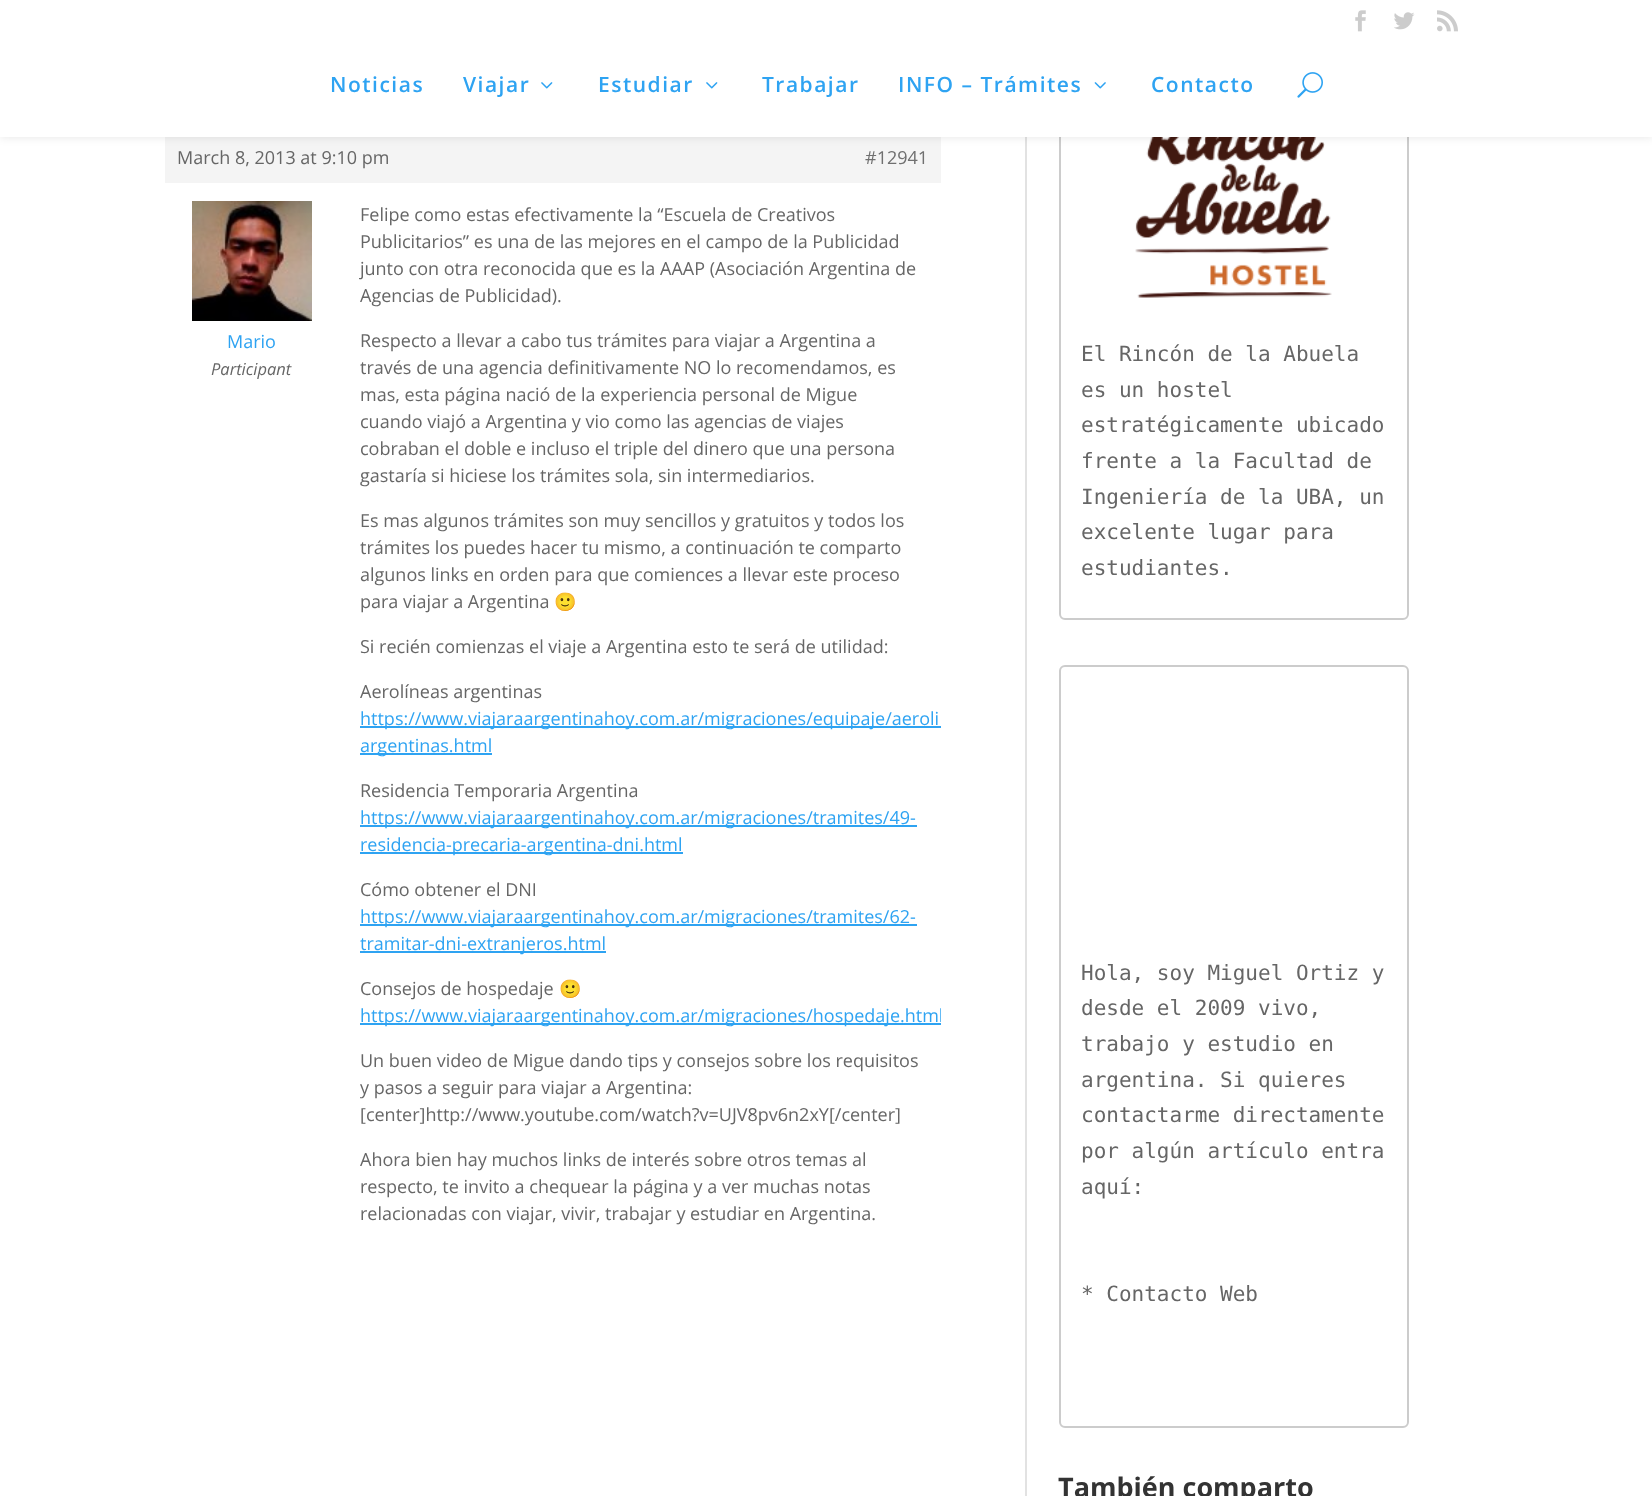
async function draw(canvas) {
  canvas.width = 1652
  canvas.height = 1496
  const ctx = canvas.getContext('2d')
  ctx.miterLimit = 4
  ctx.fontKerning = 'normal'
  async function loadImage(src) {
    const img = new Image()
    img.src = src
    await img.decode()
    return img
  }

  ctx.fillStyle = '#fff'
  ctx.fillRect(0, 0, 1652, 1496)
  ctx.drawImage(await loadImage('image0.png'), 1355, 10, 11, 22)
  ctx.drawImage(await loadImage('image1.png'), 1394, 12, 21, 18)
  ctx.drawImage(await loadImage('image2.png'), 1437, 10, 21, 22)
  ctx.fillStyle = '#e2e2e2'
  ctx.fillRect(1025, 137, 2, 1359)
  ctx.fillStyle = '#f4f4f4'
  ctx.fillRect(165, 137, 776, 46)
  ctx.beginPath()
  ctx.roundRect(1060, 42, 348, 577, 5)
  ctx.strokeStyle = '#ccc'
  ctx.lineWidth = 2
  ctx.stroke()
  ctx.drawImage(await loadImage('image7.png'), 1135, 137, 197, 161)
  ctx.fillStyle = '#0000001a'
  ctx.filter = 'blur(5px)'
  ctx.beginPath()
  ctx.rect(0, 50, 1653, 87)
  ctx.fill()
  ctx.filter = 'none'
  ctx.fillStyle = '#fff'
  ctx.fillRect(0, 41, 1652, 96)
  ctx.letterSpacing = '1.5px'
  ctx.font = '600 21px Open Sans'
  ctx.fillStyle = '#2ea3f2'
  ctx.fillText('Noticias', 330, 92)
  ctx.fillText('Viajar', 463, 92)
  ctx.drawImage(await loadImage('image3.png'), 541, 82, 12, 7)
  ctx.fillText('Estudiar', 598, 92)
  ctx.drawImage(await loadImage('image3.png'), 706, 82, 12, 7)
  ctx.fillText('Trabajar', 762, 92)
  ctx.fillText('INFO – Trámites', 898, 92)
  ctx.drawImage(await loadImage('image4.png'), 1094, 82, 12, 7)
  ctx.fillText('Contacto', 1151, 92)
  ctx.drawImage(await loadImage('image5.png'), 1297, 72, 26, 26)
  ctx.letterSpacing = '0px'
  ctx.font = '18px Open Sans'
  ctx.fillStyle = '#666'
  ctx.fillText('March 8, 2013 at 9:10 pm', 177, 164)
  ctx.fillStyle = '#707070'
  ctx.fillText('#12941', 865, 164)
  ctx.drawImage(await loadImage('image6.png'), 192, 201, 120, 120)
  ctx.fillStyle = '#2ea3f2'
  ctx.fillText('Mario', 227, 348)
  ctx.font = 'italic 16.5px Open Sans'
  ctx.fillStyle = '#666'
  ctx.fillText('Participant', 211, 375)
  ctx.font = '18px Open Sans'
  ctx.fillText('Felipe como estas efectivamente la “Escuela de Creativos', 360, 221)
  ctx.fillText('Publicitarios” es una de las mejores en el campo de la Publicidad', 360, 248)
  ctx.fillText('junto con otra reconocida que es la AAAP (Asociación Argentina de', 360, 275)
  ctx.fillText('Agencias de Publicidad).', 360, 302)
  ctx.fillText('Respecto a llevar a cabo tus trámites para viajar a Argentina a', 360, 347)
  ctx.fillText('través de una agencia definitivamente NO lo recomendamos, es', 360, 374)
  ctx.fillText('mas, esta página nació de la experiencia personal de Migue', 360, 401)
  ctx.fillText('cuando viajó a Argentina y vio como las agencias de viajes', 360, 428)
  ctx.fillText('cobraban el doble e incluso el triple del dinero que una persona', 360, 455)
  ctx.fillText('gastaría si hiciese los trámites sola, sin intermediarios.', 360, 482)
  ctx.fillText('Es mas algunos trámites son muy sencillos y gratuitos y todos los', 360, 527)
  ctx.fillText('trámites los puedes hacer tu mismo, a continuación te comparto', 360, 554)
  ctx.fillText('algunos links en orden para que comiences a llevar este proceso', 360, 581)
  ctx.fillText('para viajar a Argentina', 360, 608)
  ctx.font = '18px Noto Color Emoji'
  ctx.fillText('🙂', 554, 608)
  ctx.font = '18px Open Sans'
  ctx.fillText('Si recién comienzas el viaje a Argentina esto te será de utilidad:', 360, 653)
  ctx.fillText('Aerolíneas argentinas', 360, 698)
  ctx.fillStyle = '#2ea3f2'
  ctx.fillRect(360, 726, 581, 2)
  ctx.fillText('https://www.viajaraargentinahoy.com.ar/migraciones/equipaje/aeroli', 360, 725)
  ctx.fillRect(360, 753, 132, 2)
  ctx.fillText('argentinas.html', 360, 752)
  ctx.fillStyle = '#666'
  ctx.fillText('Residencia Temporaria Argentina', 360, 797)
  ctx.fillStyle = '#2ea3f2'
  ctx.fillRect(360, 825, 557, 2)
  ctx.fillText('https://www.viajaraargentinahoy.com.ar/migraciones/tramites/49-', 360, 824)
  ctx.fillRect(360, 852, 323, 2)
  ctx.fillText('residencia-precaria-argentina-dni.html', 360, 851)
  ctx.fillStyle = '#666'
  ctx.fillText('Cómo obtener el DNI', 360, 896)
  ctx.fillStyle = '#2ea3f2'
  ctx.fillRect(360, 924, 557, 2)
  ctx.fillText('https://www.viajaraargentinahoy.com.ar/migraciones/tramites/62-', 360, 923)
  ctx.fillRect(360, 951, 246, 2)
  ctx.fillText('tramitar-dni-extranjeros.html', 360, 950)
  ctx.fillStyle = '#666'
  ctx.fillText('Consejos de hospedaje', 360, 995)
  ctx.font = '18px Noto Color Emoji'
  ctx.fillText('🙂', 559, 995)
  ctx.fillStyle = '#2ea3f2'
  ctx.fillRect(360, 1023, 581, 2)
  ctx.save()
  ctx.beginPath()
  ctx.rect(165, 131, 776, 1114)
  ctx.clip()
  ctx.font = '18px Open Sans'
  ctx.fillText('https://www.viajaraargentinahoy.com.ar/migraciones/hospedaje.html', 360, 1022)
  ctx.restore()
  ctx.font = '18px Open Sans'
  ctx.fillStyle = '#666'
  ctx.fillText('Un buen video de Migue dando tips y consejos sobre los requisitos', 360, 1067)
  ctx.fillText('y pasos a seguir para viajar a Argentina:', 360, 1094)
  ctx.fillText('[center]http://www.youtube.com/watch?v=UJV8pv6n2xY[/center]', 360, 1121)
  ctx.fillText('Ahora bien hay muchos links de interés sobre otros temas al', 360, 1166)
  ctx.fillText('respecto, te invito a chequear la página y a ver muchas notas', 360, 1193)
  ctx.fillText('relacionadas con viajar, vivir, trabajar y estudiar en Argentina.', 360, 1220)
  ctx.font = '21px DejaVu Sans Mono'
  ctx.fillText('El Rincón de la Abuela', 1081, 361)
  ctx.fillText('es un hostel', 1081, 397)
  ctx.fillText('estratégicamente ubicado', 1081, 432)
  ctx.fillText('frente a la Facultad de', 1081, 468)
  ctx.fillText('Ingeniería de la UBA, un', 1081, 504)
  ctx.fillText('excelente lugar para', 1081, 539)
  ctx.fillText('estudiantes.', 1081, 575)
  ctx.beginPath()
  ctx.roundRect(1060, 666, 348, 761, 5)
  ctx.stroke()
  ctx.fillText('Hola, soy Miguel Ortiz y', 1081, 980)
  ctx.fillText('desde el 2009 vivo,', 1081, 1015)
  ctx.fillText('trabajo y estudio en', 1081, 1051)
  ctx.fillText('argentina. Si quieres', 1081, 1087)
  ctx.fillText('contactarme directamente', 1081, 1122)
  ctx.fillText('por algún artículo entra', 1081, 1158)
  ctx.fillText('aquí:', 1081, 1194)
  ctx.fillText('* Contacto Web', 1081, 1301)
  ctx.font = 'bold 27px Open Sans'
  ctx.fillStyle = '#333'
  ctx.fillText('También comparto', 1058, 1497)
}

draw(document.querySelector('canvas'))
